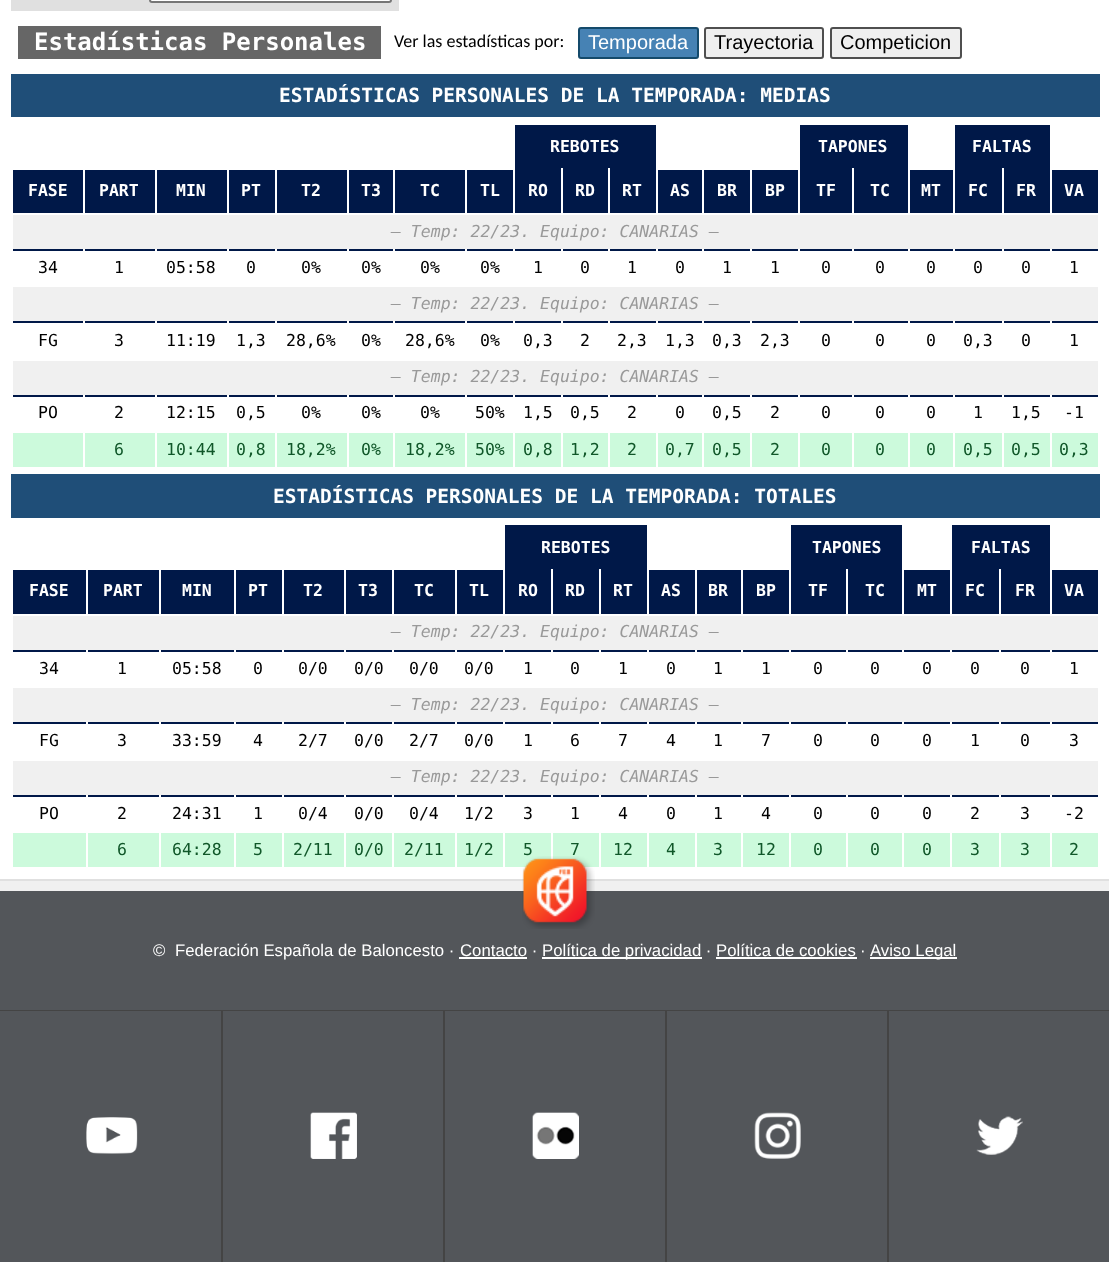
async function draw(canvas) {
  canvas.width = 1109
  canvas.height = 1262
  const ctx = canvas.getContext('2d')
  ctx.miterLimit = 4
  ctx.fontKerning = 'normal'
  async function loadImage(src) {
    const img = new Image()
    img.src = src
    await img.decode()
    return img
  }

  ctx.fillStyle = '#fff'
  ctx.fillRect(0, 0, 1109, 1262)
  ctx.fillStyle = '#e0e0e0'
  ctx.fillRect(11, 0, 388, 11)
  ctx.fillStyle = '#fff'
  ctx.beginPath()
  ctx.roundRect(150, -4, 241, 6, 2)
  ctx.fill()
  ctx.strokeStyle = '#767676'
  ctx.lineWidth = 2
  ctx.stroke()
  ctx.fillStyle = '#666'
  ctx.fillRect(18, 26, 363, 33)
  ctx.font = 'bold 24px DejaVu Sans Mono'
  ctx.fillStyle = '#fff'
  ctx.fillText('Estadísticas Personales', 34, 50)
  ctx.font = '18px Carlito'
  ctx.fillStyle = '#000'
  ctx.fillText('Ver las estadísticas por:', 394, 47)
  ctx.fillStyle = '#4682b4'
  ctx.beginPath()
  ctx.roundRect(579, 28, 119, 30, 2)
  ctx.fill()
  ctx.strokeStyle = '#144a6b'
  ctx.stroke()
  ctx.font = '20px Liberation Sans'
  ctx.fillStyle = '#fff'
  ctx.fillText('Temporada', 588, 49)
  ctx.fillStyle = '#efefef'
  ctx.beginPath()
  ctx.roundRect(705, 28, 118, 30, 2)
  ctx.fill()
  ctx.strokeStyle = '#4f4f4f'
  ctx.stroke()
  ctx.fillStyle = '#000'
  ctx.fillText('Trayectoria', 714, 49)
  ctx.fillStyle = '#efefef'
  ctx.beginPath()
  ctx.roundRect(831, 28, 130, 30, 2)
  ctx.fill()
  ctx.stroke()
  ctx.fillStyle = '#000'
  ctx.fillText('Competicion', 840, 49)
  ctx.fillStyle = '#1f4e78'
  ctx.fillRect(11, 74, 1089, 43)
  ctx.font = 'bold 19.5px DejaVu Sans Mono'
  ctx.fillStyle = '#fff'
  ctx.fillText('ESTADÍSTICAS PERSONALES DE LA TEMPORADA: MEDIAS', 279, 102)
  ctx.fillStyle = '#001848'
  ctx.fillRect(515, 125, 141, 45)
  ctx.font = 'bold 16.5px DejaVu Sans Mono'
  ctx.fillStyle = '#fff'
  ctx.fillText('REBOTES', 550, 152)
  ctx.fillStyle = '#001848'
  ctx.fillRect(800, 125, 108, 45)
  ctx.fillStyle = '#fff'
  ctx.fillText('TAPONES', 818, 152)
  ctx.fillStyle = '#001848'
  ctx.fillRect(955, 125, 95, 45)
  ctx.fillStyle = '#fff'
  ctx.fillText('FALTAS', 972, 152)
  ctx.fillStyle = '#001848'
  ctx.fillRect(13, 170, 70, 43)
  ctx.fillStyle = '#fff'
  ctx.fillText('FASE', 28, 196)
  ctx.fillStyle = '#001848'
  ctx.fillRect(85, 170, 70, 43)
  ctx.fillStyle = '#fff'
  ctx.fillText('PART', 99, 196)
  ctx.fillStyle = '#001848'
  ctx.fillRect(157, 170, 70, 43)
  ctx.fillStyle = '#fff'
  ctx.fillText('MIN', 176, 196)
  ctx.fillStyle = '#001848'
  ctx.fillRect(229, 170, 46, 43)
  ctx.fillStyle = '#fff'
  ctx.fillText('PT', 241, 196)
  ctx.fillStyle = '#001848'
  ctx.fillRect(277, 170, 70, 43)
  ctx.fillStyle = '#fff'
  ctx.fillText('T2', 301, 196)
  ctx.fillStyle = '#001848'
  ctx.fillRect(349, 170, 44, 43)
  ctx.fillStyle = '#fff'
  ctx.fillText('T3', 361, 196)
  ctx.fillStyle = '#001848'
  ctx.fillRect(395, 170, 70, 43)
  ctx.fillStyle = '#fff'
  ctx.fillText('TC', 420, 196)
  ctx.fillStyle = '#001848'
  ctx.fillRect(467, 170, 46, 43)
  ctx.fillStyle = '#fff'
  ctx.fillText('TL', 480, 196)
  ctx.fillStyle = '#001848'
  ctx.fillRect(515, 170, 46, 43)
  ctx.fillStyle = '#fff'
  ctx.fillText('RO', 528, 196)
  ctx.fillStyle = '#001848'
  ctx.fillRect(563, 170, 45, 43)
  ctx.fillStyle = '#fff'
  ctx.fillRect(561, 168, 2, 2)
  ctx.fillText('RD', 575, 196)
  ctx.fillStyle = '#001848'
  ctx.fillRect(610, 170, 46, 43)
  ctx.fillStyle = '#fff'
  ctx.fillRect(608, 168, 2, 2)
  ctx.fillText('RT', 622, 196)
  ctx.fillStyle = '#001848'
  ctx.fillRect(658, 170, 44, 43)
  ctx.fillStyle = '#fff'
  ctx.fillText('AS', 670, 196)
  ctx.fillStyle = '#001848'
  ctx.fillRect(704, 170, 46, 43)
  ctx.fillStyle = '#fff'
  ctx.fillText('BR', 717, 196)
  ctx.fillStyle = '#001848'
  ctx.fillRect(752, 170, 46, 43)
  ctx.fillStyle = '#fff'
  ctx.fillText('BP', 765, 196)
  ctx.fillStyle = '#001848'
  ctx.fillRect(800, 170, 52, 43)
  ctx.fillStyle = '#fff'
  ctx.fillText('TF', 816, 196)
  ctx.fillStyle = '#001848'
  ctx.fillRect(854, 170, 54, 43)
  ctx.fillStyle = '#fff'
  ctx.fillRect(852, 168, 2, 2)
  ctx.fillText('TC', 870, 196)
  ctx.fillStyle = '#001848'
  ctx.fillRect(910, 170, 43, 43)
  ctx.fillStyle = '#fff'
  ctx.fillText('MT', 921, 196)
  ctx.fillStyle = '#001848'
  ctx.fillRect(955, 170, 47, 43)
  ctx.fillStyle = '#fff'
  ctx.fillText('FC', 968, 196)
  ctx.fillStyle = '#001848'
  ctx.fillRect(1004, 170, 46, 43)
  ctx.fillStyle = '#fff'
  ctx.fillRect(1002, 168, 2, 2)
  ctx.fillText('FR', 1016, 196)
  ctx.fillStyle = '#001848'
  ctx.fillRect(1052, 170, 46, 43)
  ctx.fillStyle = '#fff'
  ctx.fillText('VA', 1064, 196)
  ctx.fillStyle = '#f0f0f0'
  ctx.fillRect(13, 215, 1085, 34)
  ctx.font = 'italic 16.5px DejaVu Sans Mono'
  ctx.fillStyle = '#999'
  ctx.fillText('— Temp: 22/23. Equipo: CANARIAS —', 391, 237)
  ctx.fillStyle = '#001848'
  ctx.fillRect(11, 249, 1089, 2)
  ctx.fillStyle = '#fff'
  ctx.fillRect(83, 249, 2, 2)
  ctx.fillRect(11, 249, 2, 2)
  ctx.font = '16.5px DejaVu Sans Mono'
  ctx.fillStyle = '#000'
  ctx.fillText('34', 38, 273)
  ctx.fillStyle = '#fff'
  ctx.fillRect(155, 249, 2, 2)
  ctx.fillStyle = '#000'
  ctx.fillText('1', 114, 273)
  ctx.fillStyle = '#fff'
  ctx.fillRect(227, 249, 2, 2)
  ctx.fillStyle = '#000'
  ctx.fillText('05:58', 166, 273)
  ctx.fillStyle = '#fff'
  ctx.fillRect(275, 249, 2, 2)
  ctx.fillStyle = '#000'
  ctx.fillText('0', 246, 273)
  ctx.fillStyle = '#fff'
  ctx.fillRect(347, 249, 2, 2)
  ctx.fillStyle = '#000'
  ctx.fillText('0%', 301, 273)
  ctx.fillStyle = '#fff'
  ctx.fillRect(393, 249, 2, 2)
  ctx.fillStyle = '#000'
  ctx.fillText('0%', 361, 273)
  ctx.fillStyle = '#fff'
  ctx.fillRect(465, 249, 2, 2)
  ctx.fillStyle = '#000'
  ctx.fillText('0%', 420, 273)
  ctx.fillStyle = '#fff'
  ctx.fillRect(513, 249, 2, 2)
  ctx.fillStyle = '#000'
  ctx.fillText('0%', 480, 273)
  ctx.fillStyle = '#fff'
  ctx.fillRect(561, 249, 2, 2)
  ctx.fillStyle = '#000'
  ctx.fillText('1', 533, 273)
  ctx.fillStyle = '#fff'
  ctx.fillRect(608, 249, 2, 2)
  ctx.fillStyle = '#000'
  ctx.fillText('0', 580, 273)
  ctx.fillStyle = '#fff'
  ctx.fillRect(656, 249, 2, 2)
  ctx.fillStyle = '#000'
  ctx.fillText('1', 627, 273)
  ctx.fillStyle = '#fff'
  ctx.fillRect(702, 249, 2, 2)
  ctx.fillStyle = '#000'
  ctx.fillText('0', 675, 273)
  ctx.fillStyle = '#fff'
  ctx.fillRect(750, 249, 2, 2)
  ctx.fillStyle = '#000'
  ctx.fillText('1', 722, 273)
  ctx.fillStyle = '#fff'
  ctx.fillRect(798, 249, 2, 2)
  ctx.fillStyle = '#000'
  ctx.fillText('1', 770, 273)
  ctx.fillStyle = '#fff'
  ctx.fillRect(852, 249, 2, 2)
  ctx.fillStyle = '#000'
  ctx.fillText('0', 821, 273)
  ctx.fillStyle = '#fff'
  ctx.fillRect(908, 249, 2, 2)
  ctx.fillStyle = '#000'
  ctx.fillText('0', 875, 273)
  ctx.fillStyle = '#fff'
  ctx.fillRect(953, 249, 2, 2)
  ctx.fillStyle = '#000'
  ctx.fillText('0', 926, 273)
  ctx.fillStyle = '#fff'
  ctx.fillRect(1002, 249, 2, 2)
  ctx.fillStyle = '#000'
  ctx.fillText('0', 973, 273)
  ctx.fillStyle = '#fff'
  ctx.fillRect(1050, 249, 2, 2)
  ctx.fillStyle = '#000'
  ctx.fillText('0', 1021, 273)
  ctx.fillStyle = '#fff'
  ctx.fillRect(1098, 249, 2, 2)
  ctx.fillStyle = '#000'
  ctx.fillText('1', 1069, 273)
  ctx.fillStyle = '#f0f0f0'
  ctx.fillRect(13, 287, 1085, 34)
  ctx.font = 'italic 16.5px DejaVu Sans Mono'
  ctx.fillStyle = '#999'
  ctx.fillText('— Temp: 22/23. Equipo: CANARIAS —', 391, 309)
  ctx.fillStyle = '#001848'
  ctx.fillRect(11, 321, 1089, 2)
  ctx.fillStyle = '#fff'
  ctx.fillRect(83, 321, 2, 2)
  ctx.fillRect(11, 321, 2, 2)
  ctx.font = '16.5px DejaVu Sans Mono'
  ctx.fillStyle = '#000'
  ctx.fillText('FG', 38, 346)
  ctx.fillStyle = '#fff'
  ctx.fillRect(155, 321, 2, 2)
  ctx.fillStyle = '#000'
  ctx.fillText('3', 114, 346)
  ctx.fillStyle = '#fff'
  ctx.fillRect(227, 321, 2, 2)
  ctx.fillStyle = '#000'
  ctx.fillText('11:19', 166, 346)
  ctx.fillStyle = '#fff'
  ctx.fillRect(275, 321, 2, 2)
  ctx.fillStyle = '#000'
  ctx.fillText('1,3', 236, 346)
  ctx.fillStyle = '#fff'
  ctx.fillRect(347, 321, 2, 2)
  ctx.fillStyle = '#000'
  ctx.fillText('28,6%', 286, 346)
  ctx.fillStyle = '#fff'
  ctx.fillRect(393, 321, 2, 2)
  ctx.fillStyle = '#000'
  ctx.fillText('0%', 361, 346)
  ctx.fillStyle = '#fff'
  ctx.fillRect(465, 321, 2, 2)
  ctx.fillStyle = '#000'
  ctx.fillText('28,6%', 405, 346)
  ctx.fillStyle = '#fff'
  ctx.fillRect(513, 321, 2, 2)
  ctx.fillStyle = '#000'
  ctx.fillText('0%', 480, 346)
  ctx.fillStyle = '#fff'
  ctx.fillRect(561, 321, 2, 2)
  ctx.fillStyle = '#000'
  ctx.fillText('0,3', 523, 346)
  ctx.fillStyle = '#fff'
  ctx.fillRect(608, 321, 2, 2)
  ctx.fillStyle = '#000'
  ctx.fillText('2', 580, 346)
  ctx.fillStyle = '#fff'
  ctx.fillRect(656, 321, 2, 2)
  ctx.fillStyle = '#000'
  ctx.fillText('2,3', 617, 346)
  ctx.fillStyle = '#fff'
  ctx.fillRect(702, 321, 2, 2)
  ctx.fillStyle = '#000'
  ctx.fillText('1,3', 665, 346)
  ctx.fillStyle = '#fff'
  ctx.fillRect(750, 321, 2, 2)
  ctx.fillStyle = '#000'
  ctx.fillText('0,3', 712, 346)
  ctx.fillStyle = '#fff'
  ctx.fillRect(798, 321, 2, 2)
  ctx.fillStyle = '#000'
  ctx.fillText('2,3', 760, 346)
  ctx.fillStyle = '#fff'
  ctx.fillRect(852, 321, 2, 2)
  ctx.fillStyle = '#000'
  ctx.fillText('0', 821, 346)
  ctx.fillStyle = '#fff'
  ctx.fillRect(908, 321, 2, 2)
  ctx.fillStyle = '#000'
  ctx.fillText('0', 875, 346)
  ctx.fillStyle = '#fff'
  ctx.fillRect(953, 321, 2, 2)
  ctx.fillStyle = '#000'
  ctx.fillText('0', 926, 346)
  ctx.fillStyle = '#fff'
  ctx.fillRect(1002, 321, 2, 2)
  ctx.fillStyle = '#000'
  ctx.fillText('0,3', 963, 346)
  ctx.fillStyle = '#fff'
  ctx.fillRect(1050, 321, 2, 2)
  ctx.fillStyle = '#000'
  ctx.fillText('0', 1021, 346)
  ctx.fillStyle = '#fff'
  ctx.fillRect(1098, 321, 2, 2)
  ctx.fillStyle = '#000'
  ctx.fillText('1', 1069, 346)
  ctx.fillStyle = '#f0f0f0'
  ctx.fillRect(13, 361, 1085, 34)
  ctx.font = 'italic 16.5px DejaVu Sans Mono'
  ctx.fillStyle = '#999'
  ctx.fillText('— Temp: 22/23. Equipo: CANARIAS —', 391, 382)
  ctx.fillStyle = '#001848'
  ctx.fillRect(11, 395, 1089, 2)
  ctx.fillStyle = '#fff'
  ctx.fillRect(83, 395, 2, 2)
  ctx.fillRect(11, 395, 2, 2)
  ctx.font = '16.5px DejaVu Sans Mono'
  ctx.fillStyle = '#000'
  ctx.fillText('PO', 38, 418)
  ctx.fillStyle = '#fff'
  ctx.fillRect(155, 395, 2, 2)
  ctx.fillStyle = '#000'
  ctx.fillText('2', 114, 418)
  ctx.fillStyle = '#fff'
  ctx.fillRect(227, 395, 2, 2)
  ctx.fillStyle = '#000'
  ctx.fillText('12:15', 166, 418)
  ctx.fillStyle = '#fff'
  ctx.fillRect(275, 395, 2, 2)
  ctx.fillStyle = '#000'
  ctx.fillText('0,5', 236, 418)
  ctx.fillStyle = '#fff'
  ctx.fillRect(347, 395, 2, 2)
  ctx.fillStyle = '#000'
  ctx.fillText('0%', 301, 418)
  ctx.fillStyle = '#fff'
  ctx.fillRect(393, 395, 2, 2)
  ctx.fillStyle = '#000'
  ctx.fillText('0%', 361, 418)
  ctx.fillStyle = '#fff'
  ctx.fillRect(465, 395, 2, 2)
  ctx.fillStyle = '#000'
  ctx.fillText('0%', 420, 418)
  ctx.fillStyle = '#fff'
  ctx.fillRect(513, 395, 2, 2)
  ctx.fillStyle = '#000'
  ctx.fillText('50%', 475, 418)
  ctx.fillStyle = '#fff'
  ctx.fillRect(561, 395, 2, 2)
  ctx.fillStyle = '#000'
  ctx.fillText('1,5', 523, 418)
  ctx.fillStyle = '#fff'
  ctx.fillRect(608, 395, 2, 2)
  ctx.fillStyle = '#000'
  ctx.fillText('0,5', 570, 418)
  ctx.fillStyle = '#fff'
  ctx.fillRect(656, 395, 2, 2)
  ctx.fillStyle = '#000'
  ctx.fillText('2', 627, 418)
  ctx.fillStyle = '#fff'
  ctx.fillRect(702, 395, 2, 2)
  ctx.fillStyle = '#000'
  ctx.fillText('0', 675, 418)
  ctx.fillStyle = '#fff'
  ctx.fillRect(750, 395, 2, 2)
  ctx.fillStyle = '#000'
  ctx.fillText('0,5', 712, 418)
  ctx.fillStyle = '#fff'
  ctx.fillRect(798, 395, 2, 2)
  ctx.fillStyle = '#000'
  ctx.fillText('2', 770, 418)
  ctx.fillStyle = '#fff'
  ctx.fillRect(852, 395, 2, 2)
  ctx.fillStyle = '#000'
  ctx.fillText('0', 821, 418)
  ctx.fillStyle = '#fff'
  ctx.fillRect(908, 395, 2, 2)
  ctx.fillStyle = '#000'
  ctx.fillText('0', 875, 418)
  ctx.fillStyle = '#fff'
  ctx.fillRect(953, 395, 2, 2)
  ctx.fillStyle = '#000'
  ctx.fillText('0', 926, 418)
  ctx.fillStyle = '#fff'
  ctx.fillRect(1002, 395, 2, 2)
  ctx.fillStyle = '#000'
  ctx.fillText('1', 973, 418)
  ctx.fillStyle = '#fff'
  ctx.fillRect(1050, 395, 2, 2)
  ctx.fillStyle = '#000'
  ctx.fillText('1,5', 1011, 418)
  ctx.fillStyle = '#fff'
  ctx.fillRect(1098, 395, 2, 2)
  ctx.fillStyle = '#000'
  ctx.fillText('-1', 1064, 418)
  ctx.fillStyle = '#ccfadc'
  ctx.fillRect(13, 433, 1085, 34)
  ctx.fillStyle = '#fff'
  ctx.fillRect(83, 431, 2, 37)
  ctx.fillStyle = '#105729'
  ctx.fillText('6', 114, 455)
  ctx.fillStyle = '#fff'
  ctx.fillRect(155, 431, 2, 37)
  ctx.fillStyle = '#105729'
  ctx.fillText('10:44', 166, 455)
  ctx.fillStyle = '#fff'
  ctx.fillRect(227, 431, 2, 37)
  ctx.fillStyle = '#105729'
  ctx.fillText('0,8', 236, 455)
  ctx.fillStyle = '#fff'
  ctx.fillRect(275, 431, 2, 37)
  ctx.fillStyle = '#105729'
  ctx.fillText('18,2%', 286, 455)
  ctx.fillStyle = '#fff'
  ctx.fillRect(347, 431, 2, 37)
  ctx.fillStyle = '#105729'
  ctx.fillText('0%', 361, 455)
  ctx.fillStyle = '#fff'
  ctx.fillRect(393, 431, 2, 37)
  ctx.fillStyle = '#105729'
  ctx.fillText('18,2%', 405, 455)
  ctx.fillStyle = '#fff'
  ctx.fillRect(465, 431, 2, 37)
  ctx.fillStyle = '#105729'
  ctx.fillText('50%', 475, 455)
  ctx.fillStyle = '#fff'
  ctx.fillRect(513, 431, 2, 37)
  ctx.fillStyle = '#105729'
  ctx.fillText('0,8', 523, 455)
  ctx.fillStyle = '#fff'
  ctx.fillRect(561, 431, 2, 37)
  ctx.fillStyle = '#105729'
  ctx.fillText('1,2', 570, 455)
  ctx.fillStyle = '#fff'
  ctx.fillRect(608, 431, 2, 37)
  ctx.fillStyle = '#105729'
  ctx.fillText('2', 627, 455)
  ctx.fillStyle = '#fff'
  ctx.fillRect(656, 431, 2, 37)
  ctx.fillStyle = '#105729'
  ctx.fillText('0,7', 665, 455)
  ctx.fillStyle = '#fff'
  ctx.fillRect(702, 431, 2, 37)
  ctx.fillStyle = '#105729'
  ctx.fillText('0,5', 712, 455)
  ctx.fillStyle = '#fff'
  ctx.fillRect(750, 431, 2, 37)
  ctx.fillStyle = '#105729'
  ctx.fillText('2', 770, 455)
  ctx.fillStyle = '#fff'
  ctx.fillRect(798, 431, 2, 37)
  ctx.fillStyle = '#105729'
  ctx.fillText('0', 821, 455)
  ctx.fillStyle = '#fff'
  ctx.fillRect(852, 431, 2, 37)
  ctx.fillStyle = '#105729'
  ctx.fillText('0', 875, 455)
  ctx.fillStyle = '#fff'
  ctx.fillRect(908, 431, 2, 37)
  ctx.fillStyle = '#105729'
  ctx.fillText('0', 926, 455)
  ctx.fillStyle = '#fff'
  ctx.fillRect(953, 431, 2, 37)
  ctx.fillStyle = '#105729'
  ctx.fillText('0,5', 963, 455)
  ctx.fillStyle = '#fff'
  ctx.fillRect(1002, 431, 2, 37)
  ctx.fillStyle = '#105729'
  ctx.fillText('0,5', 1011, 455)
  ctx.fillStyle = '#fff'
  ctx.fillRect(1050, 431, 2, 37)
  ctx.fillStyle = '#105729'
  ctx.fillText('0,3', 1059, 455)
  ctx.fillStyle = '#1f4e78'
  ctx.fillRect(11, 474, 1089, 44)
  ctx.font = 'bold 19.5px DejaVu Sans Mono'
  ctx.fillStyle = '#fff'
  ctx.fillText('ESTADÍSTICAS PERSONALES DE LA TEMPORADA: TOTALES', 273, 503)
  ctx.fillStyle = '#001848'
  ctx.fillRect(505, 525, 142, 45)
  ctx.font = 'bold 16.5px DejaVu Sans Mono'
  ctx.fillStyle = '#fff'
  ctx.fillText('REBOTES', 541, 553)
  ctx.fillStyle = '#001848'
  ctx.fillRect(791, 525, 111, 45)
  ctx.fillStyle = '#fff'
  ctx.fillText('TAPONES', 812, 553)
  ctx.fillStyle = '#001848'
  ctx.fillRect(952, 525, 98, 45)
  ctx.fillStyle = '#fff'
  ctx.fillText('FALTAS', 971, 553)
  ctx.fillStyle = '#001848'
  ctx.fillRect(13, 570, 73, 44)
  ctx.fillStyle = '#fff'
  ctx.fillText('FASE', 29, 596)
  ctx.fillStyle = '#001848'
  ctx.fillRect(88, 570, 71, 44)
  ctx.fillStyle = '#fff'
  ctx.fillText('PART', 103, 596)
  ctx.fillStyle = '#001848'
  ctx.fillRect(161, 570, 73, 44)
  ctx.fillStyle = '#fff'
  ctx.fillText('MIN', 182, 596)
  ctx.fillStyle = '#001848'
  ctx.fillRect(236, 570, 46, 44)
  ctx.fillStyle = '#fff'
  ctx.fillText('PT', 248, 596)
  ctx.fillStyle = '#001848'
  ctx.fillRect(284, 570, 60, 44)
  ctx.fillStyle = '#fff'
  ctx.fillText('T2', 303, 596)
  ctx.fillStyle = '#001848'
  ctx.fillRect(346, 570, 46, 44)
  ctx.fillStyle = '#fff'
  ctx.fillText('T3', 358, 596)
  ctx.fillStyle = '#001848'
  ctx.fillRect(394, 570, 61, 44)
  ctx.fillStyle = '#fff'
  ctx.fillText('TC', 414, 596)
  ctx.fillStyle = '#001848'
  ctx.fillRect(457, 570, 46, 44)
  ctx.fillStyle = '#fff'
  ctx.fillText('TL', 469, 596)
  ctx.fillStyle = '#001848'
  ctx.fillRect(505, 570, 46, 44)
  ctx.fillStyle = '#fff'
  ctx.fillText('RO', 518, 596)
  ctx.fillStyle = '#001848'
  ctx.fillRect(553, 570, 46, 44)
  ctx.fillStyle = '#fff'
  ctx.fillRect(551, 569, 2, 1)
  ctx.fillText('RD', 565, 596)
  ctx.fillStyle = '#001848'
  ctx.fillRect(601, 570, 46, 44)
  ctx.fillStyle = '#fff'
  ctx.fillRect(599, 569, 2, 1)
  ctx.fillText('RT', 613, 596)
  ctx.fillStyle = '#001848'
  ctx.fillRect(649, 570, 46, 44)
  ctx.fillStyle = '#fff'
  ctx.fillText('AS', 661, 596)
  ctx.fillStyle = '#001848'
  ctx.fillRect(697, 570, 44, 44)
  ctx.fillStyle = '#fff'
  ctx.fillText('BR', 708, 596)
  ctx.fillStyle = '#001848'
  ctx.fillRect(743, 570, 46, 44)
  ctx.fillStyle = '#fff'
  ctx.fillText('BP', 756, 596)
  ctx.fillStyle = '#001848'
  ctx.fillRect(791, 570, 55, 44)
  ctx.fillStyle = '#fff'
  ctx.fillText('TF', 808, 596)
  ctx.fillStyle = '#001848'
  ctx.fillRect(848, 570, 54, 44)
  ctx.fillStyle = '#fff'
  ctx.fillRect(846, 569, 2, 1)
  ctx.fillText('TC', 865, 596)
  ctx.fillStyle = '#001848'
  ctx.fillRect(904, 570, 46, 44)
  ctx.fillStyle = '#fff'
  ctx.fillText('MT', 917, 596)
  ctx.fillStyle = '#001848'
  ctx.fillRect(952, 570, 47, 44)
  ctx.fillStyle = '#fff'
  ctx.fillText('FC', 965, 596)
  ctx.fillStyle = '#001848'
  ctx.fillRect(1001, 570, 49, 44)
  ctx.fillStyle = '#fff'
  ctx.fillRect(999, 569, 2, 1)
  ctx.fillText('FR', 1015, 596)
  ctx.fillStyle = '#001848'
  ctx.fillRect(1052, 570, 46, 44)
  ctx.fillStyle = '#fff'
  ctx.fillText('VA', 1064, 596)
  ctx.fillStyle = '#f0f0f0'
  ctx.fillRect(13, 616, 1085, 34)
  ctx.font = 'italic 16.5px DejaVu Sans Mono'
  ctx.fillStyle = '#999'
  ctx.fillText('— Temp: 22/23. Equipo: CANARIAS —', 391, 637)
  ctx.fillStyle = '#001848'
  ctx.fillRect(11, 650, 1089, 2)
  ctx.fillStyle = '#fff'
  ctx.fillRect(86, 650, 2, 2)
  ctx.fillRect(11, 650, 2, 2)
  ctx.font = '16.5px DejaVu Sans Mono'
  ctx.fillStyle = '#000'
  ctx.fillText('34', 39, 674)
  ctx.fillStyle = '#fff'
  ctx.fillRect(159, 650, 2, 2)
  ctx.fillStyle = '#000'
  ctx.fillText('1', 117, 674)
  ctx.fillStyle = '#fff'
  ctx.fillRect(234, 650, 2, 2)
  ctx.fillStyle = '#000'
  ctx.fillText('05:58', 172, 674)
  ctx.fillStyle = '#fff'
  ctx.fillRect(282, 650, 2, 2)
  ctx.fillStyle = '#000'
  ctx.fillText('0', 253, 674)
  ctx.fillStyle = '#fff'
  ctx.fillRect(344, 650, 2, 2)
  ctx.fillStyle = '#000'
  ctx.fillText('0/0', 298, 674)
  ctx.fillStyle = '#fff'
  ctx.fillRect(392, 650, 2, 2)
  ctx.fillStyle = '#000'
  ctx.fillText('0/0', 354, 674)
  ctx.fillStyle = '#fff'
  ctx.fillRect(455, 650, 2, 2)
  ctx.fillStyle = '#000'
  ctx.fillText('0/0', 409, 674)
  ctx.fillStyle = '#fff'
  ctx.fillRect(503, 650, 2, 2)
  ctx.fillStyle = '#000'
  ctx.fillText('0/0', 464, 674)
  ctx.fillStyle = '#fff'
  ctx.fillRect(551, 650, 2, 2)
  ctx.fillStyle = '#000'
  ctx.fillText('1', 523, 674)
  ctx.fillStyle = '#fff'
  ctx.fillRect(599, 650, 2, 2)
  ctx.fillStyle = '#000'
  ctx.fillText('0', 570, 674)
  ctx.fillStyle = '#fff'
  ctx.fillRect(647, 650, 2, 2)
  ctx.fillStyle = '#000'
  ctx.fillText('1', 618, 674)
  ctx.fillStyle = '#fff'
  ctx.fillRect(695, 650, 2, 2)
  ctx.fillStyle = '#000'
  ctx.fillText('0', 666, 674)
  ctx.fillStyle = '#fff'
  ctx.fillRect(741, 650, 2, 2)
  ctx.fillStyle = '#000'
  ctx.fillText('1', 713, 674)
  ctx.fillStyle = '#fff'
  ctx.fillRect(789, 650, 2, 2)
  ctx.fillStyle = '#000'
  ctx.fillText('1', 761, 674)
  ctx.fillStyle = '#fff'
  ctx.fillRect(846, 650, 2, 2)
  ctx.fillStyle = '#000'
  ctx.fillText('0', 813, 674)
  ctx.fillStyle = '#fff'
  ctx.fillRect(902, 650, 2, 2)
  ctx.fillStyle = '#000'
  ctx.fillText('0', 870, 674)
  ctx.fillStyle = '#fff'
  ctx.fillRect(950, 650, 2, 2)
  ctx.fillStyle = '#000'
  ctx.fillText('0', 922, 674)
  ctx.fillStyle = '#fff'
  ctx.fillRect(999, 650, 2, 2)
  ctx.fillStyle = '#000'
  ctx.fillText('0', 970, 674)
  ctx.fillStyle = '#fff'
  ctx.fillRect(1050, 650, 2, 2)
  ctx.fillStyle = '#000'
  ctx.fillText('0', 1020, 674)
  ctx.fillStyle = '#fff'
  ctx.fillRect(1098, 650, 2, 2)
  ctx.fillStyle = '#000'
  ctx.fillText('1', 1069, 674)
  ctx.fillStyle = '#f0f0f0'
  ctx.fillRect(13, 688, 1085, 34)
  ctx.font = 'italic 16.5px DejaVu Sans Mono'
  ctx.fillStyle = '#999'
  ctx.fillText('— Temp: 22/23. Equipo: CANARIAS —', 391, 710)
  ctx.fillStyle = '#001848'
  ctx.fillRect(11, 722, 1089, 2)
  ctx.fillStyle = '#fff'
  ctx.fillRect(86, 722, 2, 2)
  ctx.fillRect(11, 722, 2, 2)
  ctx.font = '16.5px DejaVu Sans Mono'
  ctx.fillStyle = '#000'
  ctx.fillText('FG', 39, 746)
  ctx.fillStyle = '#fff'
  ctx.fillRect(159, 722, 2, 2)
  ctx.fillStyle = '#000'
  ctx.fillText('3', 117, 746)
  ctx.fillStyle = '#fff'
  ctx.fillRect(234, 722, 2, 2)
  ctx.fillStyle = '#000'
  ctx.fillText('33:59', 172, 746)
  ctx.fillStyle = '#fff'
  ctx.fillRect(282, 722, 2, 2)
  ctx.fillStyle = '#000'
  ctx.fillText('4', 253, 746)
  ctx.fillStyle = '#fff'
  ctx.fillRect(344, 722, 2, 2)
  ctx.fillStyle = '#000'
  ctx.fillText('2/7', 298, 746)
  ctx.fillStyle = '#fff'
  ctx.fillRect(392, 722, 2, 2)
  ctx.fillStyle = '#000'
  ctx.fillText('0/0', 354, 746)
  ctx.fillStyle = '#fff'
  ctx.fillRect(455, 722, 2, 2)
  ctx.fillStyle = '#000'
  ctx.fillText('2/7', 409, 746)
  ctx.fillStyle = '#fff'
  ctx.fillRect(503, 722, 2, 2)
  ctx.fillStyle = '#000'
  ctx.fillText('0/0', 464, 746)
  ctx.fillStyle = '#fff'
  ctx.fillRect(551, 722, 2, 2)
  ctx.fillStyle = '#000'
  ctx.fillText('1', 523, 746)
  ctx.fillStyle = '#fff'
  ctx.fillRect(599, 722, 2, 2)
  ctx.fillStyle = '#000'
  ctx.fillText('6', 570, 746)
  ctx.fillStyle = '#fff'
  ctx.fillRect(647, 722, 2, 2)
  ctx.fillStyle = '#000'
  ctx.fillText('7', 618, 746)
  ctx.fillStyle = '#fff'
  ctx.fillRect(695, 722, 2, 2)
  ctx.fillStyle = '#000'
  ctx.fillText('4', 666, 746)
  ctx.fillStyle = '#fff'
  ctx.fillRect(741, 722, 2, 2)
  ctx.fillStyle = '#000'
  ctx.fillText('1', 713, 746)
  ctx.fillStyle = '#fff'
  ctx.fillRect(789, 722, 2, 2)
  ctx.fillStyle = '#000'
  ctx.fillText('7', 761, 746)
  ctx.fillStyle = '#fff'
  ctx.fillRect(846, 722, 2, 2)
  ctx.fillStyle = '#000'
  ctx.fillText('0', 813, 746)
  ctx.fillStyle = '#fff'
  ctx.fillRect(902, 722, 2, 2)
  ctx.fillStyle = '#000'
  ctx.fillText('0', 870, 746)
  ctx.fillStyle = '#fff'
  ctx.fillRect(950, 722, 2, 2)
  ctx.fillStyle = '#000'
  ctx.fillText('0', 922, 746)
  ctx.fillStyle = '#fff'
  ctx.fillRect(999, 722, 2, 2)
  ctx.fillStyle = '#000'
  ctx.fillText('1', 970, 746)
  ctx.fillStyle = '#fff'
  ctx.fillRect(1050, 722, 2, 2)
  ctx.fillStyle = '#000'
  ctx.fillText('0', 1020, 746)
  ctx.fillStyle = '#fff'
  ctx.fillRect(1098, 722, 2, 2)
  ctx.fillStyle = '#000'
  ctx.fillText('3', 1069, 746)
  ctx.fillStyle = '#f0f0f0'
  ctx.fillRect(13, 761, 1085, 34)
  ctx.font = 'italic 16.5px DejaVu Sans Mono'
  ctx.fillStyle = '#999'
  ctx.fillText('— Temp: 22/23. Equipo: CANARIAS —', 391, 782)
  ctx.fillStyle = '#001848'
  ctx.fillRect(11, 795, 1089, 2)
  ctx.fillStyle = '#fff'
  ctx.fillRect(86, 795, 2, 2)
  ctx.fillRect(11, 795, 2, 2)
  ctx.font = '16.5px DejaVu Sans Mono'
  ctx.fillStyle = '#000'
  ctx.fillText('PO', 39, 819)
  ctx.fillStyle = '#fff'
  ctx.fillRect(159, 795, 2, 2)
  ctx.fillStyle = '#000'
  ctx.fillText('2', 117, 819)
  ctx.fillStyle = '#fff'
  ctx.fillRect(234, 795, 2, 2)
  ctx.fillStyle = '#000'
  ctx.fillText('24:31', 172, 819)
  ctx.fillStyle = '#fff'
  ctx.fillRect(282, 795, 2, 2)
  ctx.fillStyle = '#000'
  ctx.fillText('1', 253, 819)
  ctx.fillStyle = '#fff'
  ctx.fillRect(344, 795, 2, 2)
  ctx.fillStyle = '#000'
  ctx.fillText('0/4', 298, 819)
  ctx.fillStyle = '#fff'
  ctx.fillRect(392, 795, 2, 2)
  ctx.fillStyle = '#000'
  ctx.fillText('0/0', 354, 819)
  ctx.fillStyle = '#fff'
  ctx.fillRect(455, 795, 2, 2)
  ctx.fillStyle = '#000'
  ctx.fillText('0/4', 409, 819)
  ctx.fillStyle = '#fff'
  ctx.fillRect(503, 795, 2, 2)
  ctx.fillStyle = '#000'
  ctx.fillText('1/2', 464, 819)
  ctx.fillStyle = '#fff'
  ctx.fillRect(551, 795, 2, 2)
  ctx.fillStyle = '#000'
  ctx.fillText('3', 523, 819)
  ctx.fillStyle = '#fff'
  ctx.fillRect(599, 795, 2, 2)
  ctx.fillStyle = '#000'
  ctx.fillText('1', 570, 819)
  ctx.fillStyle = '#fff'
  ctx.fillRect(647, 795, 2, 2)
  ctx.fillStyle = '#000'
  ctx.fillText('4', 618, 819)
  ctx.fillStyle = '#fff'
  ctx.fillRect(695, 795, 2, 2)
  ctx.fillStyle = '#000'
  ctx.fillText('0', 666, 819)
  ctx.fillStyle = '#fff'
  ctx.fillRect(741, 795, 2, 2)
  ctx.fillStyle = '#000'
  ctx.fillText('1', 713, 819)
  ctx.fillStyle = '#fff'
  ctx.fillRect(789, 795, 2, 2)
  ctx.fillStyle = '#000'
  ctx.fillText('4', 761, 819)
  ctx.fillStyle = '#fff'
  ctx.fillRect(846, 795, 2, 2)
  ctx.fillStyle = '#000'
  ctx.fillText('0', 813, 819)
  ctx.fillStyle = '#fff'
  ctx.fillRect(902, 795, 2, 2)
  ctx.fillStyle = '#000'
  ctx.fillText('0', 870, 819)
  ctx.fillStyle = '#fff'
  ctx.fillRect(950, 795, 2, 2)
  ctx.fillStyle = '#000'
  ctx.fillText('0', 922, 819)
  ctx.fillStyle = '#fff'
  ctx.fillRect(999, 795, 2, 2)
  ctx.fillStyle = '#000'
  ctx.fillText('2', 970, 819)
  ctx.fillStyle = '#fff'
  ctx.fillRect(1050, 795, 2, 2)
  ctx.fillStyle = '#000'
  ctx.fillText('3', 1020, 819)
  ctx.fillStyle = '#fff'
  ctx.fillRect(1098, 795, 2, 2)
  ctx.fillStyle = '#000'
  ctx.fillText('-2', 1064, 819)
  ctx.fillStyle = '#ccfadc'
  ctx.fillRect(13, 833, 1085, 34)
  ctx.fillStyle = '#fff'
  ctx.fillRect(86, 831, 2, 38)
  ctx.fillStyle = '#105729'
  ctx.fillText('6', 117, 855)
  ctx.fillStyle = '#fff'
  ctx.fillRect(159, 831, 2, 38)
  ctx.fillStyle = '#105729'
  ctx.fillText('64:28', 172, 855)
  ctx.fillStyle = '#fff'
  ctx.fillRect(234, 831, 2, 38)
  ctx.fillStyle = '#105729'
  ctx.fillText('5', 253, 855)
  ctx.fillStyle = '#fff'
  ctx.fillRect(282, 831, 2, 38)
  ctx.fillStyle = '#105729'
  ctx.fillText('2/11', 293, 855)
  ctx.fillStyle = '#fff'
  ctx.fillRect(344, 831, 2, 38)
  ctx.fillStyle = '#105729'
  ctx.fillText('0/0', 354, 855)
  ctx.fillStyle = '#fff'
  ctx.fillRect(392, 831, 2, 38)
  ctx.fillStyle = '#105729'
  ctx.fillText('2/11', 404, 855)
  ctx.fillStyle = '#fff'
  ctx.fillRect(455, 831, 2, 38)
  ctx.fillStyle = '#105729'
  ctx.fillText('1/2', 464, 855)
  ctx.fillStyle = '#fff'
  ctx.fillRect(503, 831, 2, 38)
  ctx.fillStyle = '#105729'
  ctx.fillText('5', 523, 855)
  ctx.fillStyle = '#fff'
  ctx.fillRect(551, 831, 2, 29)
  ctx.fillStyle = '#105729'
  ctx.fillText('7', 570, 855)
  ctx.fillStyle = '#fff'
  ctx.fillRect(599, 831, 2, 38)
  ctx.fillStyle = '#105729'
  ctx.fillText('12', 613, 855)
  ctx.fillStyle = '#fff'
  ctx.fillRect(647, 831, 2, 38)
  ctx.fillStyle = '#105729'
  ctx.fillText('4', 666, 855)
  ctx.fillStyle = '#fff'
  ctx.fillRect(695, 831, 2, 38)
  ctx.fillStyle = '#105729'
  ctx.fillText('3', 713, 855)
  ctx.fillStyle = '#fff'
  ctx.fillRect(741, 831, 2, 38)
  ctx.fillStyle = '#105729'
  ctx.fillText('12', 756, 855)
  ctx.fillStyle = '#fff'
  ctx.fillRect(789, 831, 2, 38)
  ctx.fillStyle = '#105729'
  ctx.fillText('0', 813, 855)
  ctx.fillStyle = '#fff'
  ctx.fillRect(846, 831, 2, 38)
  ctx.fillStyle = '#105729'
  ctx.fillText('0', 870, 855)
  ctx.fillStyle = '#fff'
  ctx.fillRect(902, 831, 2, 38)
  ctx.fillStyle = '#105729'
  ctx.fillText('0', 922, 855)
  ctx.fillStyle = '#fff'
  ctx.fillRect(950, 831, 2, 38)
  ctx.fillStyle = '#105729'
  ctx.fillText('3', 970, 855)
  ctx.fillStyle = '#fff'
  ctx.fillRect(999, 831, 2, 38)
  ctx.fillStyle = '#105729'
  ctx.fillText('3', 1020, 855)
  ctx.fillStyle = '#fff'
  ctx.fillRect(1050, 831, 2, 38)
  ctx.fillStyle = '#105729'
  ctx.fillText('2', 1069, 855)
  ctx.fillStyle = '#f0f0f0'
  ctx.fillRect(0, 881, 1109, 10)
  ctx.fillStyle = '#e0e0e0'
  ctx.fillRect(0, 879, 1109, 2)
  ctx.fillStyle = '#53565a'
  ctx.fillRect(0, 891, 1109, 119)
  ctx.drawImage(await loadImage('image0.png'), 522, 856, 73, 73)
  ctx.font = '16.75px Liberation Sans'
  ctx.fillStyle = '#fff'
  ctx.fillText('©', 153, 956)
  ctx.fillText('Federación Española de Baloncesto ·', 175, 956)
  ctx.fillText('Contacto ·', 460, 956)
  ctx.fillRect(459, 957, 68, 2)
  ctx.fillRect(542, 957, 160, 2)
  ctx.fillText('Política de privacidad · Política de cookies', 542, 956)
  ctx.fillText('·', 860, 956)
  ctx.fillRect(870, 957, 87, 2)
  ctx.fillText('Aviso Legal', 870, 956)
  ctx.fillRect(716, 957, 141, 2)
  ctx.fillStyle = '#444'
  ctx.fillRect(0, 1010, 1109, 1)
  ctx.fillStyle = '#53565a'
  ctx.fillRect(0, 1011, 221, 251)
  ctx.drawImage(await loadImage('image1.png'), 86, 1117, 52, 37)
  ctx.fillRect(223, 1011, 220, 251)
  ctx.drawImage(await loadImage('image2.png'), 310, 1112, 47, 47)
  ctx.fillStyle = '#444'
  ctx.fillRect(221, 1011, 2, 251)
  ctx.fillStyle = '#53565a'
  ctx.fillRect(445, 1011, 220, 251)
  ctx.drawImage(await loadImage('image3.png'), 532, 1112, 47, 47)
  ctx.fillStyle = '#444'
  ctx.fillRect(443, 1011, 2, 251)
  ctx.fillStyle = '#53565a'
  ctx.fillRect(667, 1011, 220, 251)
  ctx.drawImage(await loadImage('image4.png'), 754, 1112, 47, 47)
  ctx.fillStyle = '#444'
  ctx.fillRect(665, 1011, 2, 251)
  ctx.fillStyle = '#53565a'
  ctx.fillRect(889, 1011, 220, 251)
  ctx.drawImage(await loadImage('image5.png'), 976, 1116, 47, 39)
  ctx.fillStyle = '#444'
  ctx.fillRect(887, 1011, 2, 251)
}

draw(document.querySelector('canvas'))
